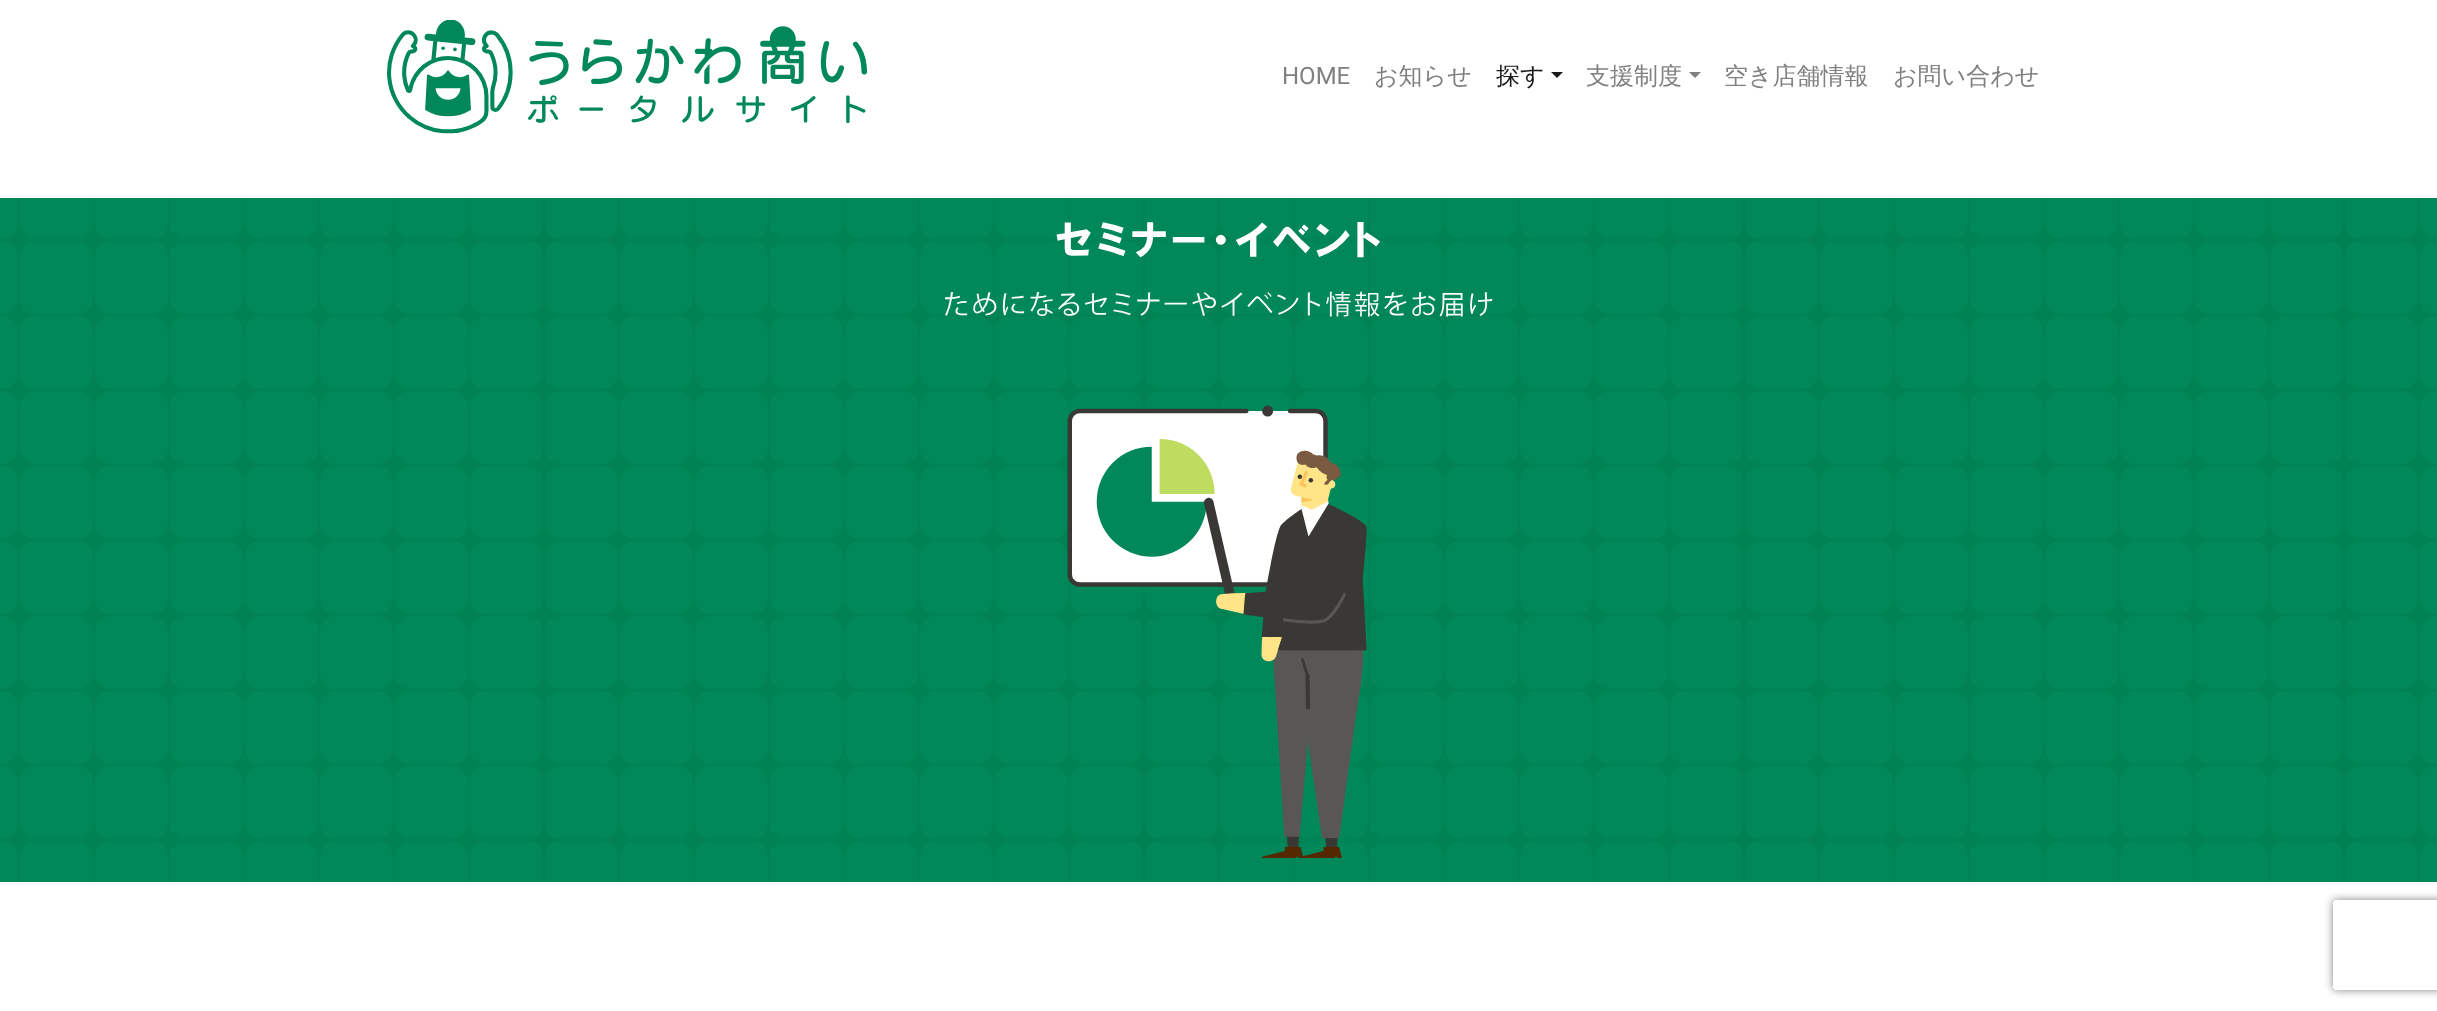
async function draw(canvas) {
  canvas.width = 2437
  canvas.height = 1011
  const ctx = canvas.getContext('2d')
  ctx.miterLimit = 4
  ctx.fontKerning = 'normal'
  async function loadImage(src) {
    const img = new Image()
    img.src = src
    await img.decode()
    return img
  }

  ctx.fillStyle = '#fff'
  ctx.fillRect(0, 0, 2437, 1011)
  ctx.drawImage(await loadImage('image0.png'), 387, 20, 480, 114)
  ctx.font = '24px Roboto'
  ctx.fillStyle = '#808080'
  ctx.fillText('HOME', 1282, 84)
  ctx.font = '500 24px WenQuanYi Zen Hei'
  ctx.fillText('お知らせ', 1374, 84)
  ctx.fillStyle = '#1a1a1a'
  ctx.fillText('探す', 1496, 84)
  ctx.beginPath()
  ctx.moveTo(1551, 72)
  ctx.lineTo(1563, 72)
  ctx.lineTo(1557, 78)
  ctx.closePath()
  ctx.fill()
  ctx.fillStyle = '#808080'
  ctx.fillText('支援制度', 1586, 84)
  ctx.beginPath()
  ctx.moveTo(1689, 72)
  ctx.lineTo(1701, 72)
  ctx.lineTo(1695, 78)
  ctx.closePath()
  ctx.fill()
  ctx.fillText('空き店舗情報', 1724, 84)
  ctx.fillText('お問い合わせ', 1893, 84)
  ctx.drawImage(await loadImage('image1.png'), 0, 198, 2437, 684)
  ctx.drawImage(await loadImage('image2.png'), 945, 222, 548, 636)
  ctx.save()
  ctx.beginPath()
  ctx.moveTo(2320, 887)
  ctx.lineTo(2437, 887)
  ctx.lineTo(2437, 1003)
  ctx.lineTo(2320, 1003)
  ctx.closePath()
  ctx.moveTo(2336, 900)
  ctx.lineTo(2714, 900)
  ctx.bezierCurveTo(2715.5, 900, 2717, 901.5, 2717, 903)
  ctx.lineTo(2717, 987)
  ctx.bezierCurveTo(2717, 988.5, 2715.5, 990, 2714, 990)
  ctx.lineTo(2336, 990)
  ctx.bezierCurveTo(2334.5, 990, 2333, 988.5, 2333, 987)
  ctx.lineTo(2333, 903)
  ctx.bezierCurveTo(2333, 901.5, 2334.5, 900, 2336, 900)
  ctx.closePath()
  ctx.clip('evenodd')
  ctx.filter = 'blur(4px)'
  ctx.beginPath()
  ctx.roundRect(2333, 900, 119, 90, 3)
  ctx.fill()
  ctx.filter = 'none'
  ctx.restore()
}

draw(document.querySelector('canvas'))
